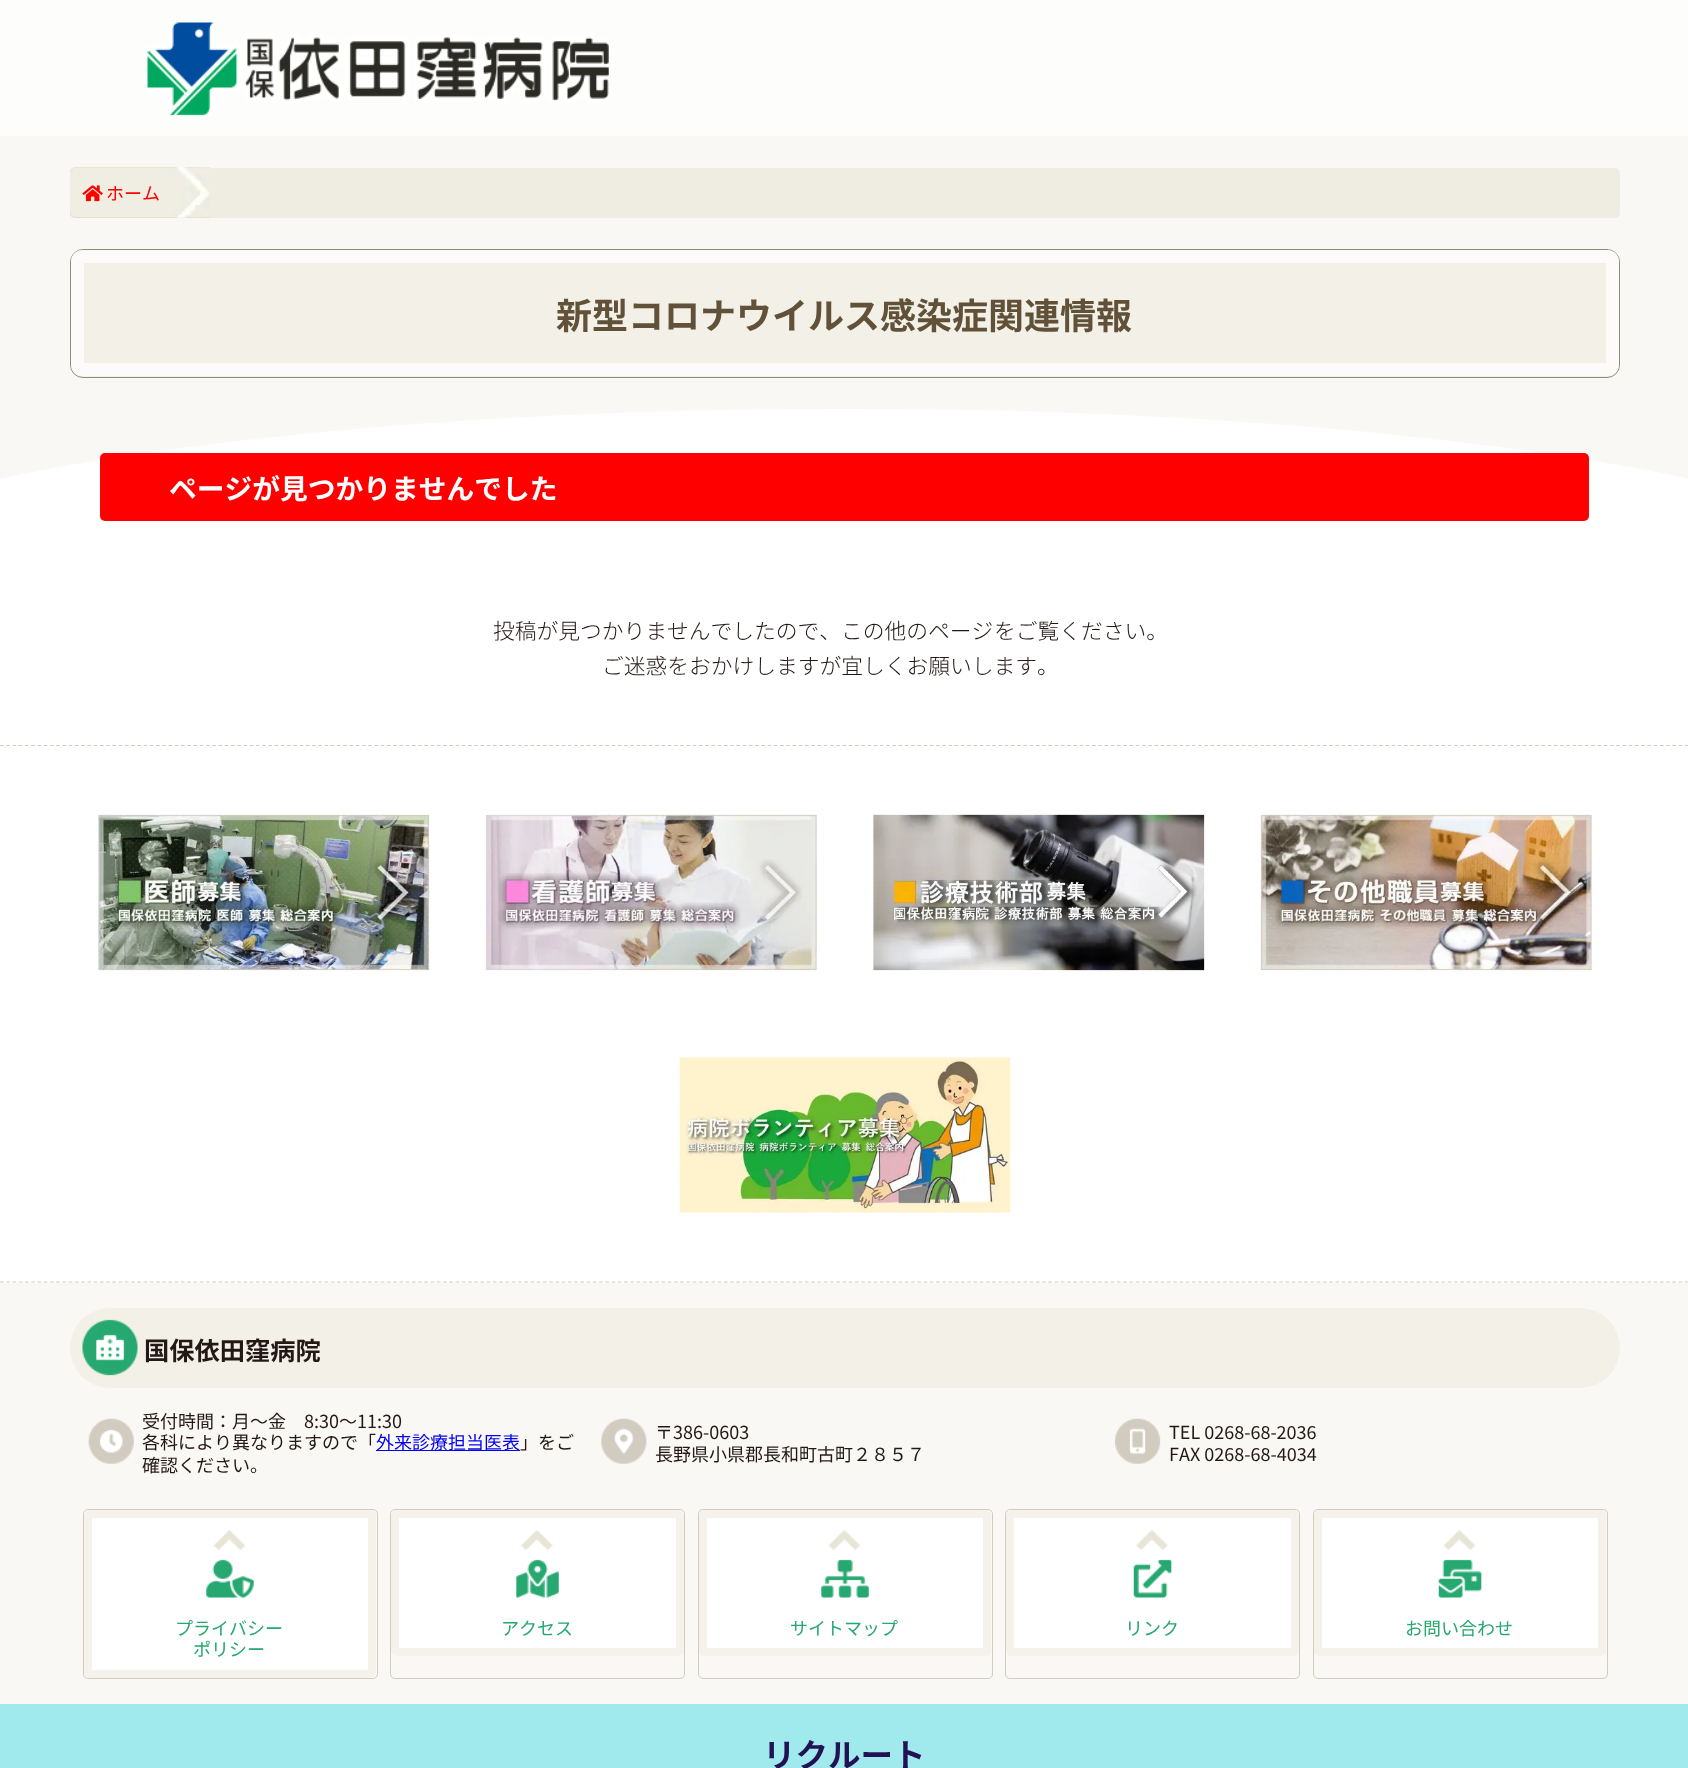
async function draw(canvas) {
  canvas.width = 1688
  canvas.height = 1768
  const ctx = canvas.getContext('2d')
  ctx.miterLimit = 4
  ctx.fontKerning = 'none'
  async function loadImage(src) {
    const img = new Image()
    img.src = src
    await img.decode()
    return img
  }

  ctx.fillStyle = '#faf8f5'
  ctx.fillRect(0, 0, 1688, 1768)
  ctx.fillStyle = '#fdfdfc'
  ctx.fillRect(0, 0, 1688, 136)
  ctx.drawImage(await loadImage('image0.png'), 147, 22, 462, 94)
  ctx.fillStyle = '#efece1'
  ctx.beginPath()
  ctx.roundRect(70, 168, 1550, 50, 5)
  ctx.fill()
  ctx.beginPath()
  ctx.roundRect(70, 168, 140, 50, [5, 0, 0, 5])
  ctx.fill()
  ctx.drawImage(await loadImage('image1.png'), 70, 167, 140, 51)
  ctx.drawImage(await loadImage('image2.png'), 82, 185, 21, 17)
  ctx.font = '18px Noto Sans JP'
  ctx.fillStyle = '#fe0000'
  ctx.fillText('ホーム', 106, 200)
  ctx.fillStyle = '#f2f0e7'
  ctx.beginPath()
  ctx.roundRect(70.5, 249.5, 1549, 128, 12.5)
  ctx.fill()
  ctx.strokeStyle = '#928b78'
  ctx.stroke()
  ctx.fillStyle = '#ffffffbf'
  ctx.beginPath()
  ctx.moveTo(82, 250)
  ctx.bezierCurveTo(76, 250, 71, 255, 71, 261)
  ctx.lineTo(71, 365)
  ctx.bezierCurveTo(71, 371, 76, 376, 82, 376)
  ctx.lineTo(1608, 376)
  ctx.bezierCurveTo(1614, 376, 1619, 371, 1619, 365)
  ctx.lineTo(1619, 261)
  ctx.bezierCurveTo(1619, 255, 1614, 250, 1608, 250)
  ctx.closePath()
  ctx.moveTo(84, 263)
  ctx.lineTo(84, 363)
  ctx.lineTo(1606, 363)
  ctx.lineTo(1606, 263)
  ctx.closePath()
  ctx.fill('evenodd')
  ctx.font = 'bold 36px Noto Sans JP'
  ctx.fillStyle = '#605138'
  ctx.fillText('新型コロナウイルス感染症関連情報', 556, 329)
  ctx.fillStyle = '#fff'
  ctx.fillRect(0, 745, 1688, 538)
  ctx.beginPath()
  ctx.moveTo(0, 745.5)
  ctx.lineTo(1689, 745.5)
  ctx.strokeStyle = '#d1ccbf'
  ctx.lineWidth = 1.2
  ctx.setLineDash([3.75, 2.49])
  ctx.stroke()
  ctx.fillRect(0, 409, 1688, 336)
  ctx.drawImage(await loadImage('image3.png'), 0, 409, 1688, 70)
  ctx.fillStyle = '#fe0000'
  ctx.beginPath()
  ctx.roundRect(100, 453, 1489, 68, 5)
  ctx.fill()
  ctx.font = 'bold 27.75px Noto Sans JP'
  ctx.fillStyle = '#fff'
  ctx.fillText('ページが見つかりませんでした', 169, 499)
  ctx.font = '300 21.75px Noto Sans JP'
  ctx.fillStyle = '#231815'
  ctx.fillText('投稿が見つかりませんでしたので、この他のページ', 493, 639)
  ctx.fillText('をご覧ください。', 994, 639)
  ctx.fillText('ご迷惑をおかけしますが宜しくお願いします。', 602, 674)
  ctx.beginPath()
  ctx.moveTo(0, 1282)
  ctx.lineTo(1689, 1282)
  ctx.stroke()
  ctx.drawImage(await loadImage('image4.png'), 98, 814, 332, 157)
  ctx.drawImage(await loadImage('image5.png'), 485, 814, 332, 157)
  ctx.drawImage(await loadImage('image6.png'), 873, 814, 332, 157)
  ctx.drawImage(await loadImage('image7.png'), 1260, 814, 332, 157)
  ctx.drawImage(await loadImage('image8.png'), 679, 1057, 332, 156)
  ctx.fillStyle = '#f2f0e7'
  ctx.beginPath()
  ctx.roundRect(70, 1308, 1550, 80, 40)
  ctx.fill()
  ctx.drawImage(await loadImage('image9.png'), 82, 1319, 56, 57)
  ctx.font = 'bold 25.25px Noto Sans JP'
  ctx.fillStyle = '#231815'
  ctx.fillText('国保依田窪病院', 144, 1360)
  ctx.drawImage(await loadImage('image10.png'), 88, 1418, 46, 46)
  ctx.font = '18px Noto Sans JP'
  ctx.fillText('受付時間：月～金　8:30～11:30', 142, 1428)
  ctx.fillText('各科により異なりますので「', 142, 1449)
  ctx.fillStyle = '#00e'
  ctx.fillRect(376, 1450, 144, 1)
  ctx.fillText('外来診療担当医表', 376, 1449)
  ctx.fillStyle = '#231815'
  ctx.fillText('」をご', 520, 1449)
  ctx.fillText('確認ください。', 142, 1472)
  ctx.drawImage(await loadImage('image11.png'), 601, 1418, 46, 46)
  ctx.fillText('〒386-0603', 655, 1439)
  ctx.fillText('長野県小県郡長和町古町２８５７', 655, 1461)
  ctx.drawImage(await loadImage('image12.png'), 1115, 1418, 46, 46)
  ctx.fillText('TEL 0268-68-2036', 1169, 1439)
  ctx.fillText('FAX 0268-68-4034', 1169, 1461)
  ctx.beginPath()
  ctx.roundRect(83.5, 1509.5, 294, 169, 4.5)
  ctx.lineWidth = 1
  ctx.setLineDash([])
  ctx.stroke()
  ctx.fillStyle = '#fff'
  ctx.beginPath()
  ctx.roundRect(84, 1510, 292, 168, 5)
  ctx.fill()
  ctx.drawImage(await loadImage('image13.png'), 206, 1530, 48, 68)
  ctx.beginPath()
  ctx.roundRect(88, 1514, 284, 160, 1)
  ctx.strokeStyle = '#f4f2ea'
  ctx.lineWidth = 8
  ctx.stroke()
  ctx.fillStyle = '#26a870'
  ctx.fillText('プライバシー', 175, 1635)
  ctx.fillText('ポリシー', 193, 1656)
  ctx.beginPath()
  ctx.roundRect(390.5, 1509.5, 294, 169, 4.5)
  ctx.strokeStyle = '#d1ccbf'
  ctx.lineWidth = 1
  ctx.stroke()
  ctx.fillStyle = '#fff'
  ctx.beginPath()
  ctx.roundRect(391, 1510, 293, 146, 5)
  ctx.fill()
  ctx.drawImage(await loadImage('image14.png'), 516, 1530, 43, 68)
  ctx.beginPath()
  ctx.roundRect(395, 1514, 285, 138, 1)
  ctx.strokeStyle = '#f4f2ea'
  ctx.lineWidth = 8
  ctx.stroke()
  ctx.fillStyle = '#26a870'
  ctx.fillText('アクセス', 501, 1635)
  ctx.beginPath()
  ctx.roundRect(698.5, 1509.5, 294, 169, 4.5)
  ctx.strokeStyle = '#d1ccbf'
  ctx.lineWidth = 1
  ctx.stroke()
  ctx.fillStyle = '#fff'
  ctx.beginPath()
  ctx.roundRect(699, 1510, 292, 146, 5)
  ctx.fill()
  ctx.drawImage(await loadImage('image15.png'), 821, 1530, 48, 68)
  ctx.beginPath()
  ctx.roundRect(703, 1514, 284, 138, 1)
  ctx.strokeStyle = '#f4f2ea'
  ctx.lineWidth = 8
  ctx.stroke()
  ctx.fillStyle = '#26a870'
  ctx.fillText('サイトマップ', 790, 1635)
  ctx.beginPath()
  ctx.roundRect(1005.5, 1509.5, 294, 169, 4.5)
  ctx.strokeStyle = '#d1ccbf'
  ctx.lineWidth = 1
  ctx.stroke()
  ctx.fillStyle = '#fff'
  ctx.beginPath()
  ctx.roundRect(1006, 1510, 293, 146, 5)
  ctx.fill()
  ctx.drawImage(await loadImage('image16.png'), 1133, 1530, 39, 68)
  ctx.beginPath()
  ctx.roundRect(1010, 1514, 285, 138, 1)
  ctx.strokeStyle = '#f4f2ea'
  ctx.lineWidth = 8
  ctx.stroke()
  ctx.fillStyle = '#26a870'
  ctx.fillText('リンク', 1125, 1635)
  ctx.beginPath()
  ctx.roundRect(1313.5, 1509.5, 294, 169, 4.5)
  ctx.strokeStyle = '#d1ccbf'
  ctx.lineWidth = 1
  ctx.stroke()
  ctx.fillStyle = '#fff'
  ctx.beginPath()
  ctx.roundRect(1314, 1510, 292, 146, 5)
  ctx.fill()
  ctx.drawImage(await loadImage('image17.png'), 1438, 1530, 44, 68)
  ctx.beginPath()
  ctx.roundRect(1318, 1514, 284, 138, 1)
  ctx.strokeStyle = '#f4f2ea'
  ctx.lineWidth = 8
  ctx.stroke()
  ctx.fillStyle = '#26a870'
  ctx.fillText('お問い合わせ', 1405, 1635)
  ctx.fillStyle = '#a0eaee'
  ctx.fillRect(0, 1704, 1688, 64)
  ctx.font = 'bold 32.5px Noto Sans JP'
  ctx.fillStyle = '#215'
  ctx.fillText('リクルート', 763, 1767)
}

draw(document.querySelector('canvas'))
